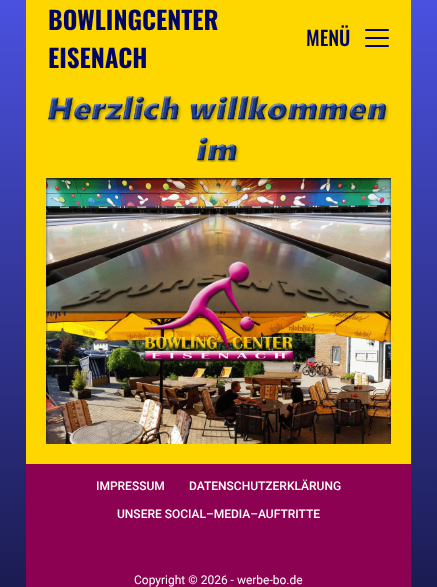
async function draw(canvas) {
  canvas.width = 437
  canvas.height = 587
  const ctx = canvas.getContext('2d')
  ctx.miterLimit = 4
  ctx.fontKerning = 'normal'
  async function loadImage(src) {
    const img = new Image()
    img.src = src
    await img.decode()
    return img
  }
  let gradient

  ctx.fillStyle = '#fff'
  ctx.fillRect(0, 0, 437, 587)
  gradient = ctx.createLinearGradient(218, 0, 219, 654)
  gradient.addColorStop(0, '#4a51df')
  gradient.addColorStop(1, '#161642')
  ctx.fillStyle = gradient
  ctx.fillRect(0, 0, 437, 587)
  ctx.fillStyle = '#ffd700'
  ctx.fillRect(26, 0, 385, 464)
  ctx.drawImage(await loadImage('image0.png'), 47, 96, 342, 66)
  ctx.drawImage(await loadImage('image1.png'), 46, 178, 345, 266)
  ctx.font = 'bold 25px Oswald'
  ctx.fillStyle = '#000566'
  ctx.fillText('BOWLINGCENTER', 48, 30)
  ctx.fillText('EISENACH', 48, 68)
  ctx.font = '500 20px Oswald'
  ctx.fillText('MENÜ', 306, 46)
  ctx.beginPath()
  ctx.roundRect(365, 29, 24, 2, 1)
  ctx.fill()
  ctx.beginPath()
  ctx.roundRect(365, 37, 24, 2, 1)
  ctx.fill()
  ctx.beginPath()
  ctx.roundRect(365, 45, 24, 2, 1)
  ctx.fill()
  ctx.fillStyle = '#8d0152'
  ctx.fillRect(26, 464, 385, 123)
  ctx.font = '500 12px Roboto'
  ctx.fillStyle = '#fff'
  ctx.fillText('IMPRESSUM', 96, 490)
  ctx.fillText('DATENSCHUTZERKLÄRUNG', 189, 490)
  ctx.fillText('UNSERE SOCIAL–MEDIA–AUFTRITTE', 117, 518)
  ctx.font = '12px Roboto'
  ctx.fillText('Copyright © 2026 - werbe-bo.de', 134, 584)
}

draw(document.querySelector('canvas'))
